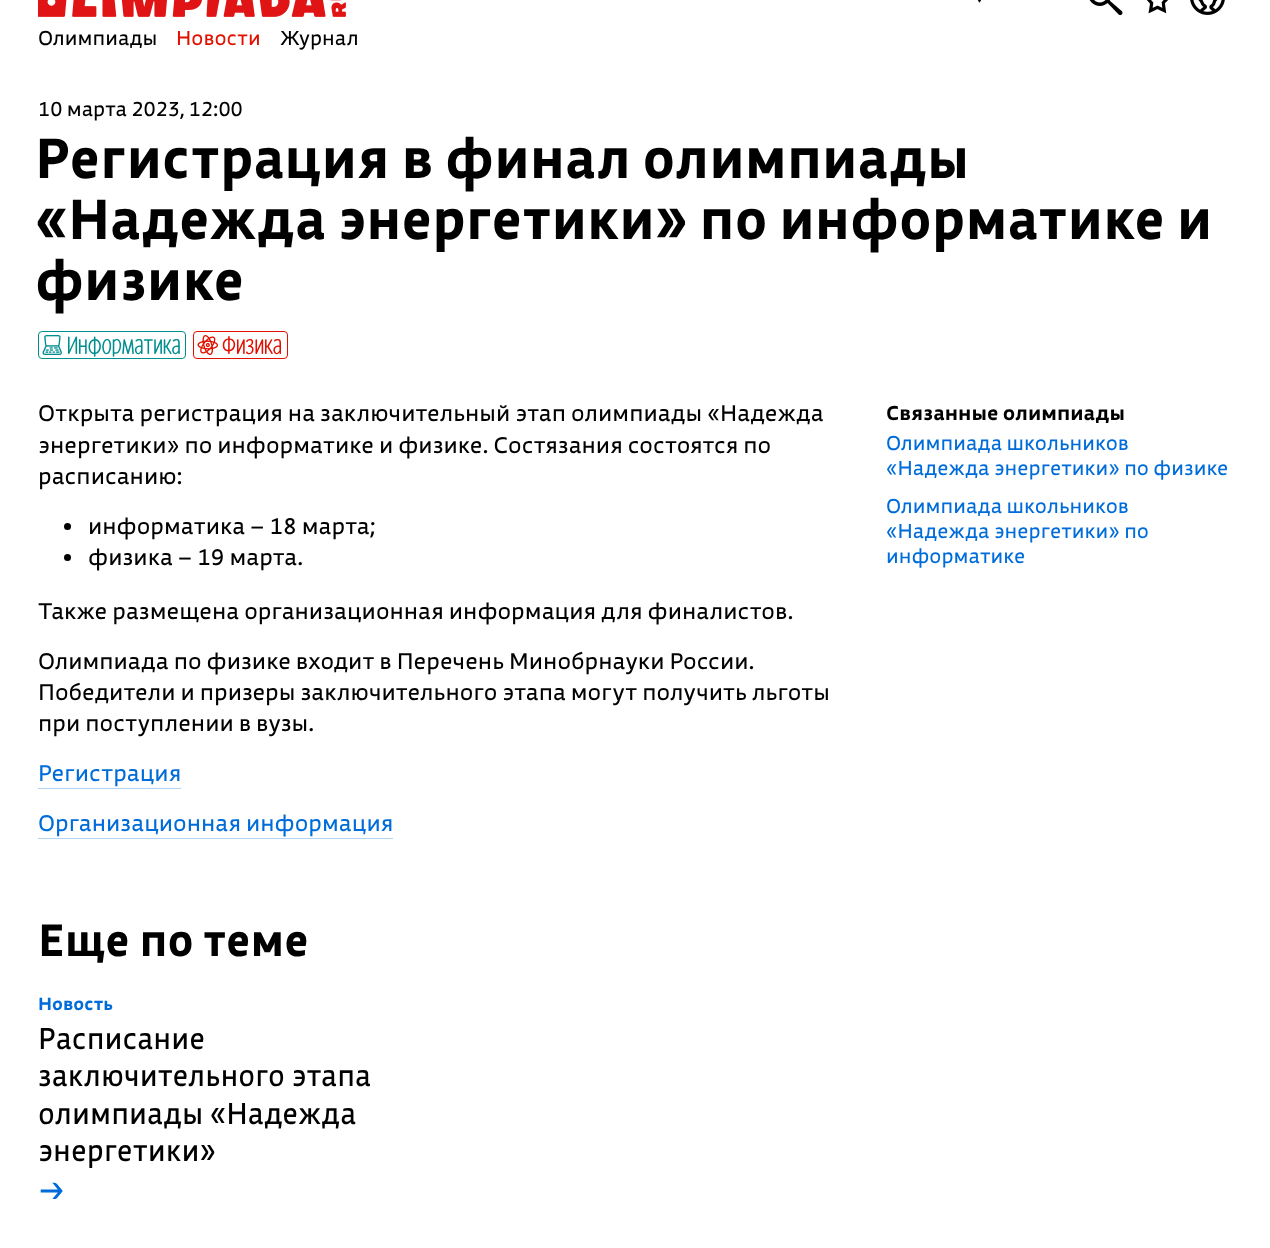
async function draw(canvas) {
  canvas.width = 1270
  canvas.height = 1248
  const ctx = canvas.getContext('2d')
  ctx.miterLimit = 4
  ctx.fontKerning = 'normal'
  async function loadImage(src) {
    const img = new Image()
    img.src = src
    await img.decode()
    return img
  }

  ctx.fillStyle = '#fff'
  ctx.fillRect(0, 0, 1270, 1248)
  ctx.drawImage(await loadImage('image0.png'), 38, 0, 308, 17)
  ctx.drawImage(await loadImage('image1.png'), 977, 0, 5, 3)
  ctx.drawImage(await loadImage('image2.png'), 1089, 0, 34, 16)
  ctx.drawImage(await loadImage('image3.png'), 1147, 0, 22, 14)
  ctx.drawImage(await loadImage('image4.png'), 1190, 0, 35, 15)
  ctx.font = '20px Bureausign'
  ctx.fillStyle = '#000'
  ctx.fillText('Олимпиады', 38, 45)
  ctx.fillStyle = '#e11000'
  ctx.fillText('Новости', 176, 45)
  ctx.fillStyle = '#000'
  ctx.fillText('Журнал', 280, 45)
  ctx.fillText('10 марта 2023, 12:00', 38, 116)
  ctx.font = 'bold 56.25px "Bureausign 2"'
  ctx.fillText('Регистрация в финал олимпиады', 35, 178)
  ctx.fillText('«Надежда энергетики» по информатике и', 35, 239)
  ctx.fillText('физике', 35, 300)
  ctx.beginPath()
  ctx.roundRect(38.5, 331.5, 147, 27, 3.5)
  ctx.strokeStyle = '#008e8f'
  ctx.stroke()
  ctx.drawImage(await loadImage('image5.png'), 42, 335, 20, 20)
  ctx.font = '25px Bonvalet'
  ctx.fillStyle = '#008e8f'
  ctx.fillText('Информатика', 67, 354)
  ctx.beginPath()
  ctx.roundRect(193.5, 331.5, 94, 27, 3.5)
  ctx.strokeStyle = '#e11000'
  ctx.stroke()
  ctx.drawImage(await loadImage('image6.png'), 197, 335, 21, 20)
  ctx.fillStyle = '#e11000'
  ctx.fillText('Физика', 222, 354)
  ctx.font = '22.5px Bureausign'
  ctx.fillStyle = '#000'
  ctx.fillText('Открыта регистрация на заключительный этап олимпиады «Надежда', 38, 421)
  ctx.fillText('энергетики» по информатике и физике. Состязания состоятся по', 38, 453)
  ctx.fillText('расписанию:', 38, 484)
  ctx.beginPath()
  ctx.arc(67.5, 526.5, 3.5, 0, 2 * Math.PI)
  ctx.fill()
  ctx.fillText('информатика – 18 марта;', 88, 534)
  ctx.beginPath()
  ctx.arc(67.5, 557.5, 3.5, 0, 2 * Math.PI)
  ctx.fill()
  ctx.fillText('физика – 19 марта.', 88, 565)
  ctx.fillText('Также размещена организационная информация для финалистов.', 38, 619)
  ctx.fillText('Олимпиада по физике входит в Перечень Минобрнауки России.', 38, 669)
  ctx.fillText('Победители и призеры заключительного этапа могут получить льготы', 38, 700)
  ctx.fillText('при поступлении в вузы.', 38, 731)
  ctx.fillStyle = '#006cd9'
  ctx.fillText('Регистрация', 38, 781)
  ctx.fillStyle = '#b3d3f4'
  ctx.fillRect(38, 788, 143, 1)
  ctx.fillStyle = '#006cd9'
  ctx.fillText('Организационная информация', 38, 831)
  ctx.fillStyle = '#b3d3f4'
  ctx.fillRect(38, 838, 355, 1)
  ctx.font = 'bold 20px Bureausign'
  ctx.fillStyle = '#000'
  ctx.fillText('Связанные олимпиады', 886, 420)
  ctx.font = '20px Bureausign'
  ctx.fillStyle = '#006cd9'
  ctx.fillText('Олимпиада школьников', 886, 450)
  ctx.fillText('«Надежда энергетики» по физике', 886, 475)
  ctx.fillText('Олимпиада школьников', 886, 513)
  ctx.fillText('«Надежда энергетики» по', 886, 538)
  ctx.fillText('информатике', 886, 563)
  ctx.font = 'bold 45px "Bureausign 2"'
  ctx.fillStyle = '#000'
  ctx.fillText('Еще по теме', 38, 956)
  ctx.font = 'bold 17.5px Bureausign'
  ctx.fillStyle = '#006cd9'
  ctx.fillText('Новость', 38, 1010)
  ctx.font = '30px "Bureausign 2"'
  ctx.fillStyle = '#000'
  ctx.fillText('Расписание', 38, 1049)
  ctx.fillText('заключительного этапа', 38, 1086)
  ctx.fillText('олимпиады «Надежда', 38, 1124)
  ctx.fillText('энергетики»', 38, 1161)
  ctx.fillStyle = '#006cd9'
  ctx.fillText('→', 38, 1199)
}

draw(document.querySelector('canvas'))
